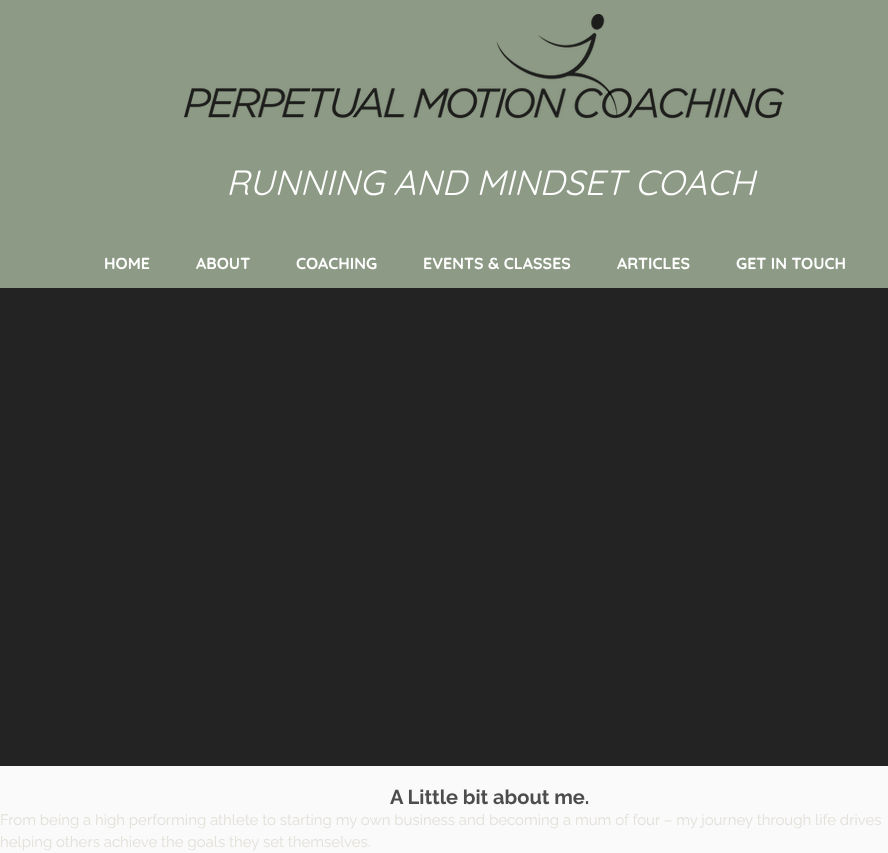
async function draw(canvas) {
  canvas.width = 888
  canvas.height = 853
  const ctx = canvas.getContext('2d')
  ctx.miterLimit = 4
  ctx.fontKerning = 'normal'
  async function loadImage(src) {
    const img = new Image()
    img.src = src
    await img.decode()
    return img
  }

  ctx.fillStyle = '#8d9a85'
  ctx.fillRect(0, 0, 888, 853)
  ctx.drawImage(await loadImage('image0.png'), 184, 14, 600, 105)
  ctx.font = 'italic 35px Quicksand'
  ctx.fillStyle = '#fff'
  ctx.fillText('RUNNING AND MINDSET COACH', 226, 195)
  ctx.font = 'bold 16px Quicksand'
  ctx.fillText('HOME', 104, 269)
  ctx.fillText('ABOUT', 196, 269)
  ctx.fillText('COACHING', 296, 269)
  ctx.fillText('EVENTS & CLASSES', 423, 269)
  ctx.fillText('ARTICLES', 617, 269)
  ctx.fillText('GET IN TOUCH', 736, 269)
  ctx.fillStyle = '#242323'
  ctx.fillRect(0, 288, 888, 478)
  ctx.fillStyle = '#fafafa'
  ctx.fillRect(0, 766, 888, 87)
  ctx.font = 'bold 20px Raleway'
  ctx.fillStyle = '#4d4d4d'
  ctx.fillText('A Little bit about me.', 390, 804)
  ctx.font = '15px Raleway'
  ctx.fillStyle = '#e2e0d9'
  ctx.fillText('From being a high performing athlete to starting my own business and becoming a mum of four – my journey through life drives', 0, 825)
  ctx.fillText('helping others achieve the goals they set themselves.', 0, 847)
}

draw(document.querySelector('canvas'))
